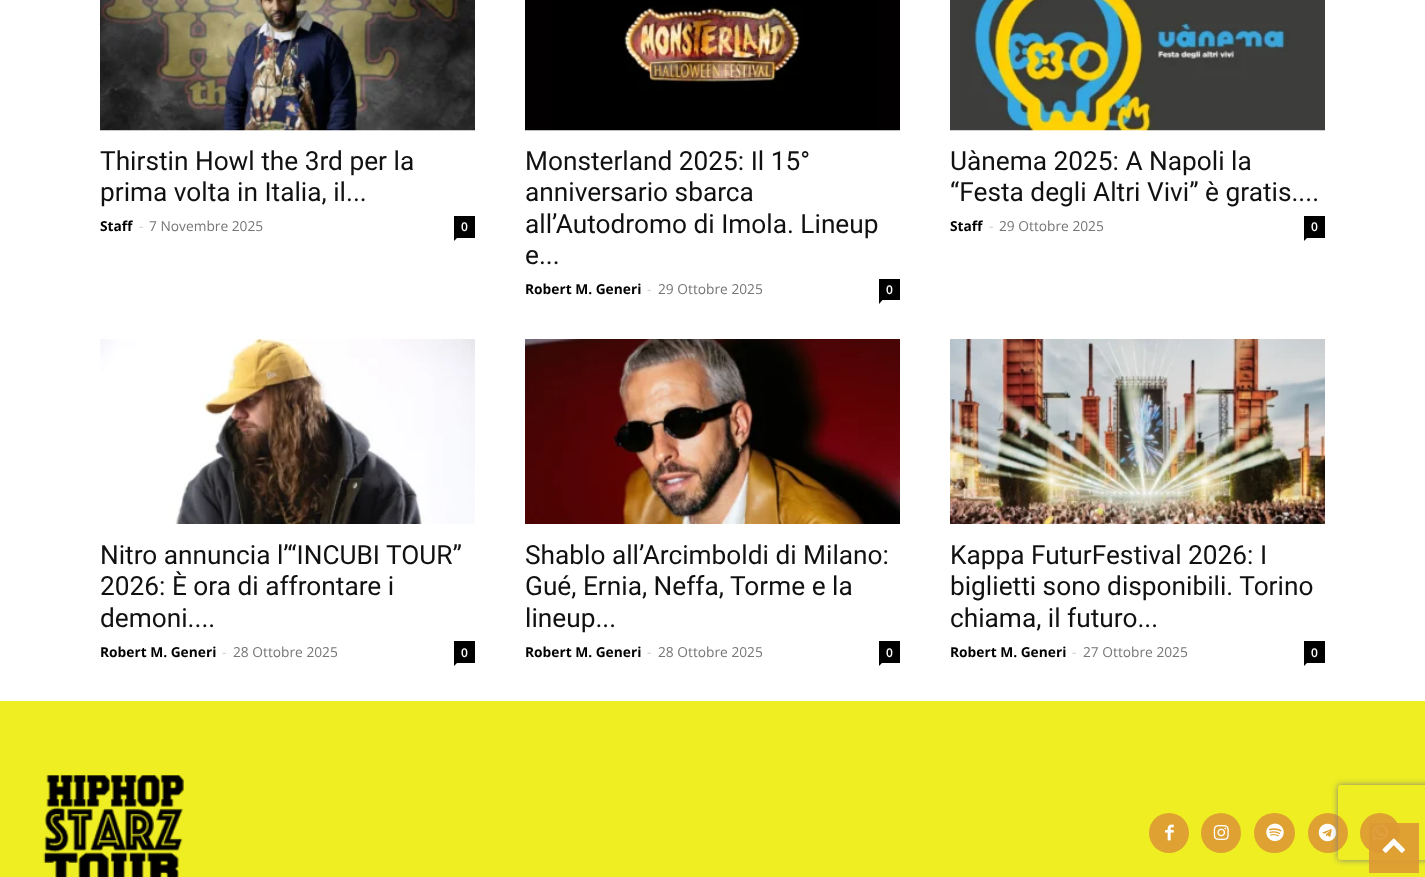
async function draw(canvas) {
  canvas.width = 1425
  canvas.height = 877
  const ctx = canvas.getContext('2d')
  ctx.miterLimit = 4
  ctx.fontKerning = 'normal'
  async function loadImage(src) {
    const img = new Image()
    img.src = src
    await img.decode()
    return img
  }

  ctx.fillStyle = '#fff'
  ctx.fillRect(0, 0, 1425, 877)
  ctx.drawImage(await loadImage('image0.png'), 100, 0, 375, 131)
  ctx.font = '26.25px Roboto'
  ctx.fillStyle = '#111'
  ctx.fillText('Thirstin Howl the 3rd per la', 100, 170)
  ctx.fillText('prima volta in Italia, il...', 100, 201)
  ctx.font = 'bold 13.75px Open Sans'
  ctx.fillStyle = '#000'
  ctx.fillText('Staff', 100, 231)
  ctx.font = '13.75px Open Sans'
  ctx.fillStyle = '#ccc'
  ctx.fillText('-', 139, 231)
  ctx.fillStyle = '#767676'
  ctx.fillText('7 Novembre 2025', 149, 231)
  ctx.fillStyle = '#000'
  ctx.fillRect(454, 216, 21, 22)
  ctx.font = '600 12px Open Sans'
  ctx.fillStyle = '#fff'
  ctx.fillText('0', 461, 231)
  ctx.fillStyle = '#000'
  ctx.beginPath()
  ctx.moveTo(454, 237.5)
  ctx.lineTo(457.5, 237.5)
  ctx.lineTo(454, 241)
  ctx.closePath()
  ctx.fill()
  ctx.drawImage(await loadImage('image1.png'), 525, 0, 375, 131)
  ctx.font = '26.25px Roboto'
  ctx.fillStyle = '#111'
  ctx.fillText('Monsterland 2025: Il 15°', 525, 170)
  ctx.fillText('anniversario sbarca', 525, 201)
  ctx.fillText('all’Autodromo di Imola. Lineup', 525, 233)
  ctx.fillText('e...', 525, 264)
  ctx.font = 'bold 13.75px Open Sans'
  ctx.fillStyle = '#000'
  ctx.fillText('Robert M. Generi', 525, 294)
  ctx.font = '13.75px Open Sans'
  ctx.fillStyle = '#ccc'
  ctx.fillText('-', 647, 294)
  ctx.fillStyle = '#767676'
  ctx.fillText('29 Ottobre 2025', 658, 294)
  ctx.fillStyle = '#000'
  ctx.fillRect(879, 279, 21, 21)
  ctx.font = '600 12px Open Sans'
  ctx.fillStyle = '#fff'
  ctx.fillText('0', 886, 294)
  ctx.fillStyle = '#000'
  ctx.beginPath()
  ctx.moveTo(879, 300)
  ctx.lineTo(882.5, 300)
  ctx.lineTo(879, 304)
  ctx.closePath()
  ctx.fill()
  ctx.drawImage(await loadImage('image2.png'), 950, 0, 375, 131)
  ctx.font = '26.25px Roboto'
  ctx.fillStyle = '#111'
  ctx.fillText('Uànema 2025: A Napoli la', 950, 170)
  ctx.fillText('“Festa degli Altri Vivi” è gratis....', 950, 201)
  ctx.font = 'bold 13.75px Open Sans'
  ctx.fillStyle = '#000'
  ctx.fillText('Staff', 950, 231)
  ctx.font = '13.75px Open Sans'
  ctx.fillStyle = '#ccc'
  ctx.fillText('-', 989, 231)
  ctx.fillStyle = '#767676'
  ctx.fillText('29 Ottobre 2025', 999, 231)
  ctx.fillStyle = '#000'
  ctx.fillRect(1304, 216, 21, 22)
  ctx.font = '600 12px Open Sans'
  ctx.fillStyle = '#fff'
  ctx.fillText('0', 1311, 231)
  ctx.fillStyle = '#000'
  ctx.beginPath()
  ctx.moveTo(1304, 237.5)
  ctx.lineTo(1307.5, 237.5)
  ctx.lineTo(1304, 241)
  ctx.closePath()
  ctx.fill()
  ctx.drawImage(await loadImage('image3.png'), 100, 339, 375, 185)
  ctx.font = '26.25px Roboto'
  ctx.fillStyle = '#111'
  ctx.fillText('Nitro annuncia l’“INCUBI TOUR”', 100, 564)
  ctx.fillText('2026: È ora di affrontare i', 100, 595)
  ctx.fillText('demoni....', 100, 627)
  ctx.font = 'bold 13.75px Open Sans'
  ctx.fillStyle = '#000'
  ctx.fillText('Robert M. Generi', 100, 657)
  ctx.font = '13.75px Open Sans'
  ctx.fillStyle = '#ccc'
  ctx.fillText('-', 222, 657)
  ctx.fillStyle = '#767676'
  ctx.fillText('28 Ottobre 2025', 233, 657)
  ctx.fillStyle = '#000'
  ctx.fillRect(454, 641, 21, 22)
  ctx.font = '600 12px Open Sans'
  ctx.fillStyle = '#fff'
  ctx.fillText('0', 461, 657)
  ctx.fillStyle = '#000'
  ctx.beginPath()
  ctx.moveTo(454, 662.5)
  ctx.lineTo(457.5, 662.5)
  ctx.lineTo(454, 666)
  ctx.closePath()
  ctx.fill()
  ctx.drawImage(await loadImage('image4.png'), 525, 339, 375, 185)
  ctx.font = '26.25px Roboto'
  ctx.fillStyle = '#111'
  ctx.fillText('Shablo all’Arcimboldi di Milano:', 525, 564)
  ctx.fillText('Gué, Ernia, Neffa, Torme e la', 525, 595)
  ctx.fillText('lineup...', 525, 627)
  ctx.font = 'bold 13.75px Open Sans'
  ctx.fillStyle = '#000'
  ctx.fillText('Robert M. Generi', 525, 657)
  ctx.font = '13.75px Open Sans'
  ctx.fillStyle = '#ccc'
  ctx.fillText('-', 647, 657)
  ctx.fillStyle = '#767676'
  ctx.fillText('28 Ottobre 2025', 658, 657)
  ctx.fillStyle = '#000'
  ctx.fillRect(879, 641, 21, 22)
  ctx.font = '600 12px Open Sans'
  ctx.fillStyle = '#fff'
  ctx.fillText('0', 886, 657)
  ctx.fillStyle = '#000'
  ctx.beginPath()
  ctx.moveTo(879, 662.5)
  ctx.lineTo(882.5, 662.5)
  ctx.lineTo(879, 666)
  ctx.closePath()
  ctx.fill()
  ctx.drawImage(await loadImage('image5.png'), 950, 339, 375, 185)
  ctx.font = '26.25px Roboto'
  ctx.fillStyle = '#111'
  ctx.fillText('Kappa FuturFestival 2026: I', 950, 564)
  ctx.fillText('biglietti sono disponibili. Torino', 950, 595)
  ctx.fillText('chiama, il futuro...', 950, 627)
  ctx.font = 'bold 13.75px Open Sans'
  ctx.fillStyle = '#000'
  ctx.fillText('Robert M. Generi', 950, 657)
  ctx.font = '13.75px Open Sans'
  ctx.fillStyle = '#ccc'
  ctx.fillText('-', 1072, 657)
  ctx.fillStyle = '#767676'
  ctx.fillText('27 Ottobre 2025', 1083, 657)
  ctx.fillStyle = '#000'
  ctx.fillRect(1304, 641, 21, 22)
  ctx.font = '600 12px Open Sans'
  ctx.fillStyle = '#fff'
  ctx.fillText('0', 1311, 657)
  ctx.fillStyle = '#000'
  ctx.beginPath()
  ctx.moveTo(1304, 662.5)
  ctx.lineTo(1307.5, 662.5)
  ctx.lineTo(1304, 666)
  ctx.closePath()
  ctx.fill()
  ctx.fillStyle = '#ee2'
  ctx.fillRect(0, 701, 1425, 176)
  ctx.drawImage(await loadImage('image6.png'), 43, 775, 141, 102)
  ctx.fillStyle = '#dfa131'
  ctx.beginPath()
  ctx.arc(1169, 833, 20, 0, 2 * Math.PI)
  ctx.fill()
  ctx.drawImage(await loadImage('image7.png'), 1165, 824, 9, 17)
  ctx.beginPath()
  ctx.arc(1221, 833, 20, 0, 2 * Math.PI)
  ctx.fill()
  ctx.drawImage(await loadImage('image8.png'), 1213, 825, 16, 15)
  ctx.beginPath()
  ctx.roundRect(1254, 813, 41, 40, 20)
  ctx.fill()
  ctx.drawImage(await loadImage('image9.png'), 1266, 823, 18, 19)
  ctx.beginPath()
  ctx.arc(1328, 833, 20, 0, 2 * Math.PI)
  ctx.fill()
  ctx.drawImage(await loadImage('image10.png'), 1318, 823, 19, 19)
  ctx.beginPath()
  ctx.arc(1380, 833, 20, 0, 2 * Math.PI)
  ctx.fill()
  ctx.drawImage(await loadImage('image11.png'), 1372, 824, 16, 16)
  ctx.save()
  ctx.beginPath()
  ctx.moveTo(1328, 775)
  ctx.lineTo(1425, 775)
  ctx.lineTo(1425, 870)
  ctx.lineTo(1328, 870)
  ctx.closePath()
  ctx.moveTo(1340.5, 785)
  ctx.lineTo(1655.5, 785)
  ctx.bezierCurveTo(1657, 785, 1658, 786, 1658, 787.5)
  ctx.lineTo(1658, 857.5)
  ctx.bezierCurveTo(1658, 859, 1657, 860, 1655.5, 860)
  ctx.lineTo(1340.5, 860)
  ctx.bezierCurveTo(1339, 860, 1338, 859, 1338, 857.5)
  ctx.lineTo(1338, 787.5)
  ctx.bezierCurveTo(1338, 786, 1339, 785, 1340.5, 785)
  ctx.closePath()
  ctx.clip('evenodd')
  ctx.fillStyle = '#808080'
  ctx.filter = 'blur(3px)'
  ctx.beginPath()
  ctx.roundRect(1338, 785, 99, 75, 2.5)
  ctx.fill()
  ctx.filter = 'none'
  ctx.restore()
  ctx.fillStyle = '#dd9933e8'
  ctx.fillRect(1369, 823, 50, 50)
  ctx.drawImage(await loadImage('image12.png'), 1382, 838, 23, 15)
}

draw(document.querySelector('canvas'))
